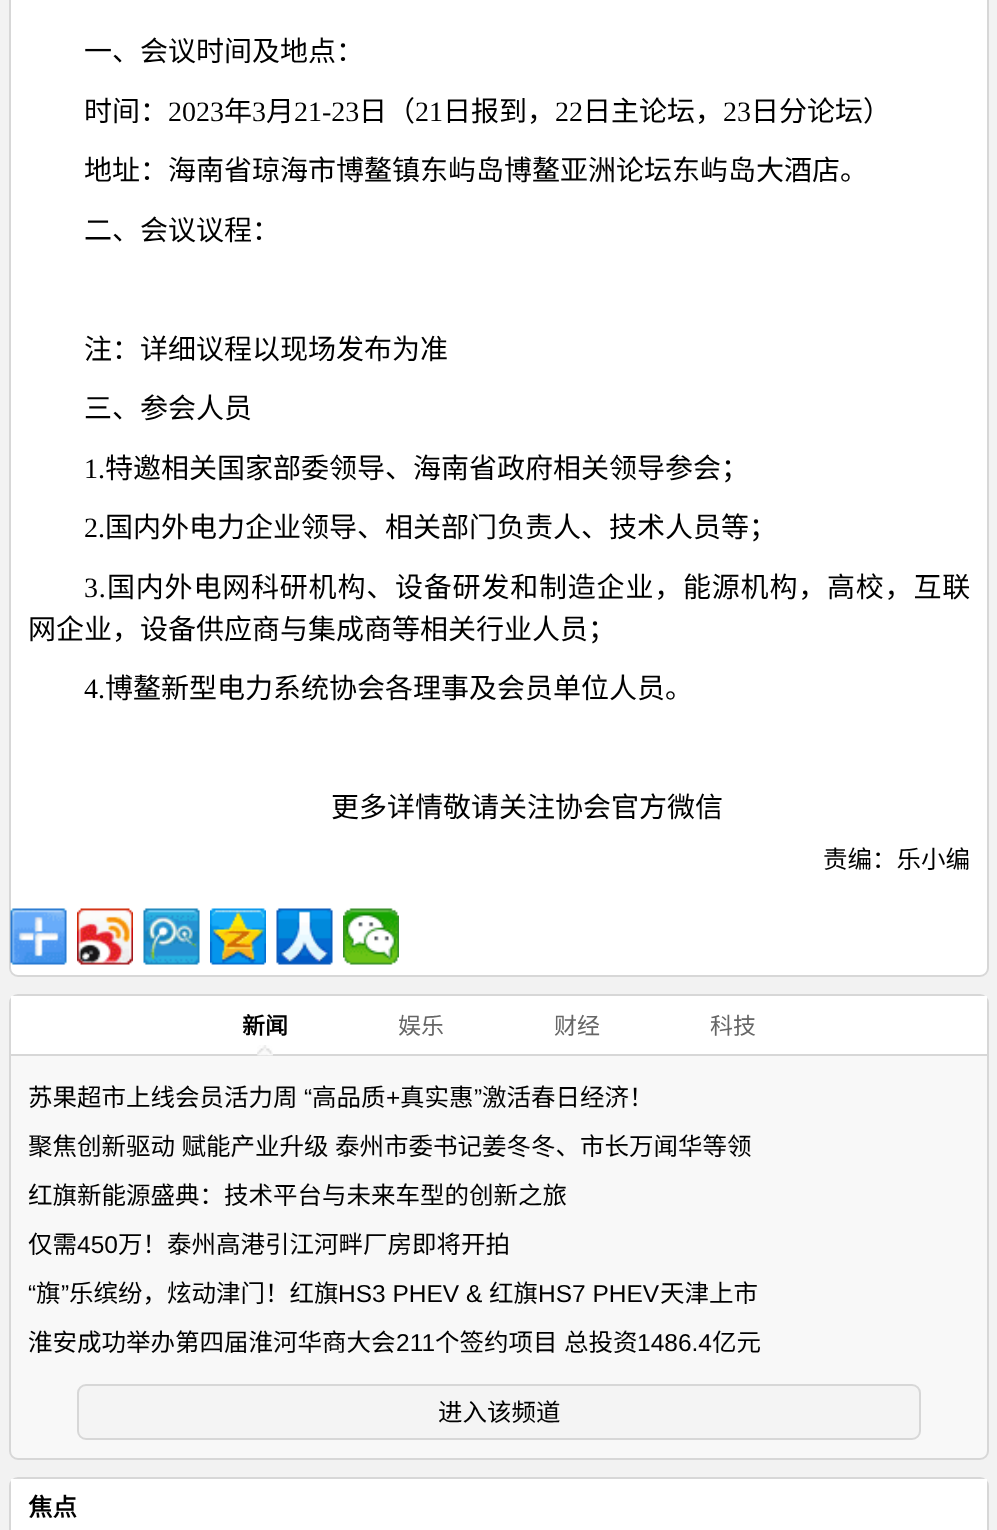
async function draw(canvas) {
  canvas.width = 997
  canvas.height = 1530
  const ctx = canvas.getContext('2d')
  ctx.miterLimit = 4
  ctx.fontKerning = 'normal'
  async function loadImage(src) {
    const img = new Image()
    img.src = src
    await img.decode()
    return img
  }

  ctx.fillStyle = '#f2f2f2'
  ctx.fillRect(0, 0, 997, 1530)
  ctx.fillStyle = '#fff'
  ctx.beginPath()
  ctx.roundRect(10, -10, 978, 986, 8)
  ctx.fill()
  ctx.strokeStyle = '#d7d7d7'
  ctx.lineWidth = 2
  ctx.stroke()
  ctx.font = '28px Noto Sans CJK SC'
  ctx.fillStyle = '#000'
  ctx.fillText('一、会议时间及地点：', 84, 61)
  ctx.fillText('时间：', 84, 121)
  ctx.font = '28px Liberation Serif'
  ctx.fillText('2023', 168, 121)
  ctx.font = '28px Noto Sans CJK SC'
  ctx.fillText('年', 224, 121)
  ctx.font = '28px Liberation Serif'
  ctx.fillText('3', 252, 121)
  ctx.font = '28px Noto Sans CJK SC'
  ctx.fillText('月', 266, 121)
  ctx.font = '28px Liberation Serif'
  ctx.fillText('21-23', 294, 121)
  ctx.font = '28px Noto Sans CJK SC'
  ctx.fillText('日（', 359, 121)
  ctx.font = '28px Liberation Serif'
  ctx.fillText('21', 415, 121)
  ctx.font = '28px Noto Sans CJK SC'
  ctx.fillText('日报到，', 443, 121)
  ctx.font = '28px Liberation Serif'
  ctx.fillText('22', 555, 121)
  ctx.font = '28px Noto Sans CJK SC'
  ctx.fillText('日主论坛，', 583, 121)
  ctx.font = '28px Liberation Serif'
  ctx.fillText('23', 723, 121)
  ctx.font = '28px Noto Sans CJK SC'
  ctx.fillText('日分论坛）', 751, 121)
  ctx.fillText('地址：海南省琼海市博鳌镇东屿岛博鳌亚洲论坛东屿岛大酒店。', 84, 180)
  ctx.fillText('二、会议议程：', 84, 240)
  ctx.fillText('注：详细议程以现场发布为准', 84, 359)
  ctx.fillText('三、参会人员', 84, 418)
  ctx.font = '28px Liberation Serif'
  ctx.fillText('1.', 84, 478)
  ctx.font = '28px Noto Sans CJK SC'
  ctx.fillText('特邀相关国家部委领导、海南省政府相关领导参会；', 105, 478)
  ctx.font = '28px Liberation Serif'
  ctx.fillText('2.', 84, 537)
  ctx.font = '28px Noto Sans CJK SC'
  ctx.fillText('国内外电力企业领导、相关部门负责人、技术人员等；', 105, 537)
  ctx.letterSpacing = '0.8px'
  ctx.font = '28px Liberation Serif'
  ctx.fillText('3.', 84, 597)
  ctx.font = '28px Noto Sans CJK SC'
  ctx.fillText('国内外电网科研机构、设备研发和制造企业，能源机构，高校，互联', 107, 597)
  ctx.letterSpacing = '0px'
  ctx.fillText('网企业，设备供应商与集成商等相关行业人员；', 28, 639)
  ctx.font = '28px Liberation Serif'
  ctx.fillText('4.', 84, 698)
  ctx.font = '28px Noto Sans CJK SC'
  ctx.fillText('博鳌新型电力系统协会各理事及会员单位人员。', 105, 698)
  ctx.fillText('更多详情敬请关注协会官方微信', 331, 817)
  ctx.font = '24.5px Noto Sans CJK SC'
  ctx.fillText('责编：乐小编', 823, 868)
  ctx.drawImage(await loadImage('image0.png'), 10, 908, 57, 57)
  ctx.drawImage(await loadImage('image1.png'), 77, 908, 56, 57)
  ctx.drawImage(await loadImage('image2.png'), 143, 908, 57, 57)
  ctx.drawImage(await loadImage('image3.png'), 210, 908, 56, 57)
  ctx.drawImage(await loadImage('image4.png'), 276, 908, 57, 57)
  ctx.drawImage(await loadImage('image5.png'), 343, 908, 56, 57)
  ctx.fillStyle = '#f8f8f8'
  ctx.beginPath()
  ctx.roundRect(10, 995, 978, 464, 8)
  ctx.fill()
  ctx.stroke()
  ctx.fillStyle = '#fff'
  ctx.fillRect(11, 996, 976, 58)
  ctx.fillStyle = '#d7d7d7'
  ctx.fillRect(11, 1054, 976, 2)
  ctx.drawImage(await loadImage('image6.png'), 257, 1045, 16, 11)
  ctx.font = 'bold 23px Noto Sans CJK SC'
  ctx.fillStyle = '#000'
  ctx.fillText('新闻', 242, 1034)
  ctx.font = '23px Noto Sans CJK SC'
  ctx.fillStyle = '#666'
  ctx.fillText('娱乐', 398, 1034)
  ctx.fillText('财经', 554, 1034)
  ctx.fillText('科技', 710, 1034)
  ctx.font = '24.5px Noto Sans CJK SC'
  ctx.fillStyle = '#000'
  ctx.fillText('苏果超市上线会员活力周', 28, 1106)
  ctx.font = '24.5px Liberation Sans'
  ctx.fillText('“', 304, 1106)
  ctx.font = '24.5px Noto Sans CJK SC'
  ctx.fillText('高品质', 312, 1106)
  ctx.font = '24.5px Liberation Sans'
  ctx.fillText('+', 386, 1106)
  ctx.font = '24.5px Noto Sans CJK SC'
  ctx.fillText('真实惠', 400, 1106)
  ctx.font = '24.5px Liberation Sans'
  ctx.fillText('”', 474, 1106)
  ctx.font = '24.5px Noto Sans CJK SC'
  ctx.fillText('激活春日经济！', 482, 1106)
  ctx.wordSpacing = '1px'
  ctx.fillText('聚焦创新驱动 赋能产业升级 泰州市委书记姜冬冬、市长万闻华等领', 28, 1155)
  ctx.wordSpacing = '0px'
  ctx.fillText('红旗新能源盛典：技术平台与未来车型的创新之旅', 28, 1204)
  ctx.fillText('仅需', 28, 1253)
  ctx.font = '24.5px Liberation Sans'
  ctx.fillText('450', 77, 1253)
  ctx.font = '24.5px Noto Sans CJK SC'
  ctx.fillText('万！泰州高港引江河畔厂房即将开拍', 118, 1253)
  ctx.font = '24.5px Liberation Sans'
  ctx.fillText('“', 28, 1302)
  ctx.font = '24.5px Noto Sans CJK SC'
  ctx.fillText('旗', 36, 1302)
  ctx.font = '24.5px Liberation Sans'
  ctx.fillText('”', 61, 1302)
  ctx.font = '24.5px Noto Sans CJK SC'
  ctx.fillText('乐缤纷，炫动津门！红旗', 69, 1302)
  ctx.font = '24.5px Liberation Sans'
  ctx.fillText('HS3 PHEV &', 338, 1302)
  ctx.font = '24.5px Noto Sans CJK SC'
  ctx.fillText('红旗', 489, 1302)
  ctx.font = '24.5px Liberation Sans'
  ctx.fillText('HS7 PHEV', 538, 1302)
  ctx.font = '24.5px Noto Sans CJK SC'
  ctx.fillText('天津上市', 660, 1302)
  ctx.fillText('淮安成功举办第四届淮河华商大会', 28, 1351)
  ctx.font = '24.5px Liberation Sans'
  ctx.fillText('211', 396, 1351)
  ctx.wordSpacing = '1px'
  ctx.font = '24.5px Noto Sans CJK SC'
  ctx.fillText('个签约项目 总投资', 435, 1351)
  ctx.wordSpacing = '0px'
  ctx.font = '24.5px Liberation Sans'
  ctx.fillText('1486.4', 637, 1351)
  ctx.font = '24.5px Noto Sans CJK SC'
  ctx.fillText('亿元', 712, 1351)
  ctx.fillStyle = '#f4f4f4'
  ctx.beginPath()
  ctx.roundRect(78, 1385, 842, 54, 8)
  ctx.fill()
  ctx.stroke()
  ctx.fillStyle = '#000'
  ctx.fillText('进入该频道', 438, 1421)
  ctx.beginPath()
  ctx.roundRect(10, 1478, 978, 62, 8)
  ctx.stroke()
  ctx.fillStyle = '#fff'
  ctx.fillRect(11, 1479, 976, 51)
  ctx.font = 'bold 24.5px Noto Sans CJK SC'
  ctx.fillStyle = '#000'
  ctx.fillText('焦点', 28, 1516)
}

draw(document.querySelector('canvas'))
